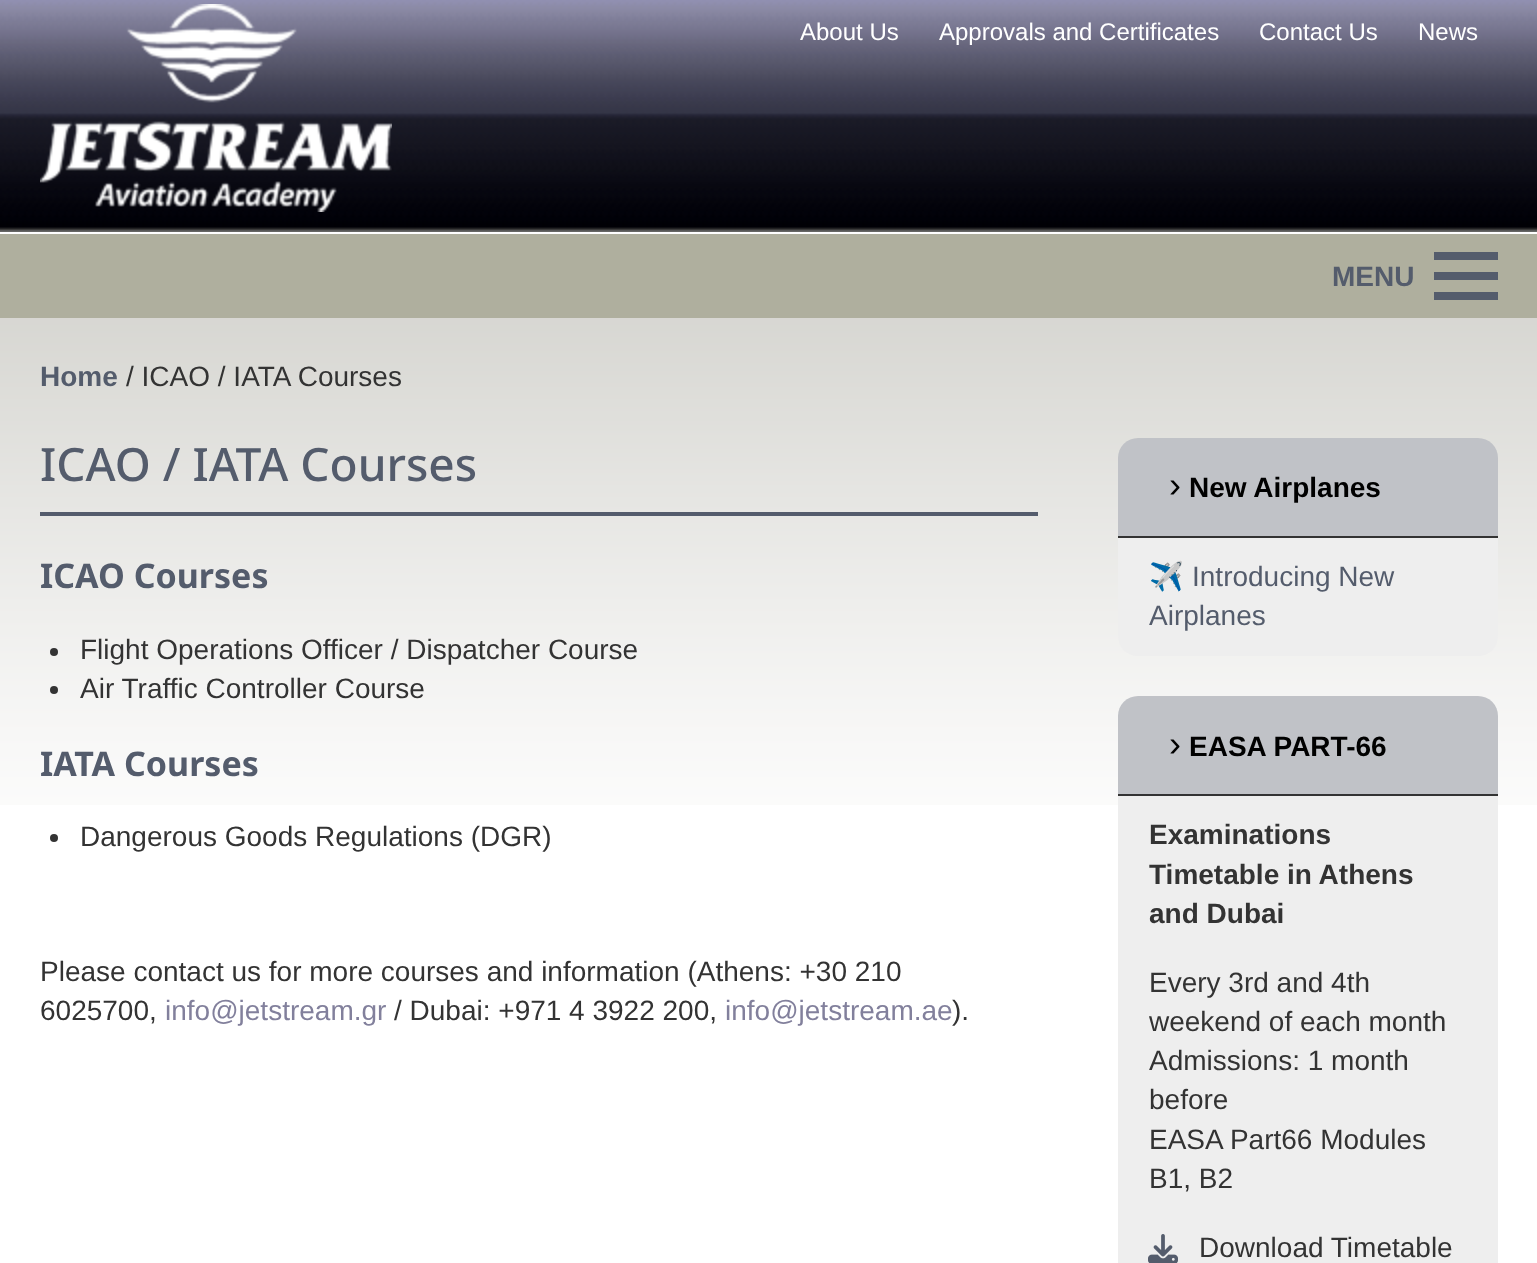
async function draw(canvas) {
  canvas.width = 1537
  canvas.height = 1263
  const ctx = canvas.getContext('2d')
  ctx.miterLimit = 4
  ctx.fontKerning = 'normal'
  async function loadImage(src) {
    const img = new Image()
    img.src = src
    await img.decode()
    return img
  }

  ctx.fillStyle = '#fff'
  ctx.fillRect(0, 0, 1537, 1263)
  ctx.drawImage(await loadImage('image0.png'), 0, 0, 1537, 232)
  ctx.drawImage(await loadImage('image1.png'), 40, 4, 352, 208)
  ctx.font = '24px Liberation Sans'
  ctx.fillText('About Us', 800, 40)
  ctx.fillText('Approvals and Certificates', 939, 40)
  ctx.fillText('Contact Us', 1259, 40)
  ctx.fillText('News', 1418, 40)
  ctx.fillStyle = '#afaf9e'
  ctx.fillRect(0, 234, 1537, 84)
  ctx.font = 'bold 28px Liberation Sans'
  ctx.fillStyle = '#545c6c'
  ctx.fillText('MENU', 1332, 286)
  ctx.fillRect(1434, 272, 64, 8)
  ctx.fillRect(1434, 252, 64, 8)
  ctx.fillRect(1434, 292, 64, 8)
  ctx.drawImage(await loadImage('image2.png'), 0, 318, 1537, 487)
  ctx.fillText('Home', 40, 386)
  ctx.font = '28px Liberation Sans'
  ctx.fillStyle = '#333'
  ctx.fillText('/ ICAO / IATA Courses', 126, 386)
  ctx.fillStyle = '#545c6c'
  ctx.fillRect(40, 512, 998, 4)
  ctx.font = '500 46px Noto Sans'
  ctx.fillText('ICAO / IATA Courses', 40, 481)
  ctx.font = 'bold 34px Noto Sans'
  ctx.fillText('ICAO Courses', 40, 588)
  ctx.fillStyle = '#333'
  ctx.beginPath()
  ctx.arc(54, 652, 4, 0, 2 * Math.PI)
  ctx.fill()
  ctx.font = '28px Liberation Sans'
  ctx.fillText('Flight Operations Officer / Dispatcher Course', 80, 659)
  ctx.beginPath()
  ctx.arc(54, 690, 4, 0, 2 * Math.PI)
  ctx.fill()
  ctx.fillText('Air Traffic Controller Course', 80, 698)
  ctx.font = 'bold 34px Noto Sans'
  ctx.fillStyle = '#545c6c'
  ctx.fillText('IATA Courses', 40, 776)
  ctx.fillStyle = '#333'
  ctx.beginPath()
  ctx.arc(54, 838, 4, 0, 2 * Math.PI)
  ctx.fill()
  ctx.font = '28px Liberation Sans'
  ctx.fillText('Dangerous Goods Regulations (DGR)', 80, 846)
  ctx.fillText('Please contact us for more courses and information (Athens: +30 210', 40, 981)
  ctx.fillText('6025700,', 40, 1020)
  ctx.fillStyle = '#82809c'
  ctx.fillText('info@jetstream.gr', 165, 1020)
  ctx.fillStyle = '#333'
  ctx.fillText('/ Dubai: +971 4 3922 200,', 394, 1020)
  ctx.fillStyle = '#82809c'
  ctx.fillText('info@jetstream.ae', 725, 1020)
  ctx.fillStyle = '#333'
  ctx.fillText(').', 952, 1020)
  ctx.fillStyle = '#c0c2c7'
  ctx.beginPath()
  ctx.roundRect(1118, 438, 380, 100, [20, 20, 0, 0])
  ctx.fill()
  ctx.fillStyle = '#333'
  ctx.fillRect(1118, 536, 380, 2)
  ctx.font = '36px Liberation Sans'
  ctx.fillStyle = '#000'
  ctx.fillText('›', 1169, 497)
  ctx.font = 'bold 28px Liberation Sans'
  ctx.fillText('New Airplanes', 1189, 497)
  ctx.fillStyle = '#eee'
  ctx.beginPath()
  ctx.roundRect(1118, 538, 380, 118, [0, 0, 20, 20])
  ctx.fill()
  ctx.font = '28px Noto Color Emoji'
  ctx.fillStyle = '#545c6c'
  ctx.fillText('✈️', 1149, 586)
  ctx.font = '28px Liberation Sans'
  ctx.fillText('Introducing New', 1192, 586)
  ctx.fillText('Airplanes', 1149, 625)
  ctx.fillStyle = '#c0c2c7'
  ctx.beginPath()
  ctx.roundRect(1118, 696, 380, 100, [20, 20, 0, 0])
  ctx.fill()
  ctx.fillStyle = '#333'
  ctx.fillRect(1118, 794, 380, 2)
  ctx.font = '36px Liberation Sans'
  ctx.fillStyle = '#000'
  ctx.fillText('›', 1169, 756)
  ctx.font = 'bold 28px Liberation Sans'
  ctx.fillText('EASA PART-66', 1189, 756)
  ctx.fillStyle = '#eee'
  ctx.fillRect(1118, 796, 380, 467)
  ctx.fillStyle = '#333'
  ctx.fillText('Examinations', 1149, 844)
  ctx.fillText('Timetable in Athens', 1149, 884)
  ctx.fillText('and Dubai', 1149, 923)
  ctx.font = '28px Liberation Sans'
  ctx.fillText('Every 3rd and 4th', 1149, 992)
  ctx.fillText('weekend of each month', 1149, 1031)
  ctx.fillText('Admissions: 1 month', 1149, 1070)
  ctx.fillText('before', 1149, 1109)
  ctx.fillText('EASA Part66 Modules', 1149, 1149)
  ctx.fillText('B1, B2', 1149, 1188)
  ctx.drawImage(await loadImage('image3.png'), 1148, 1234, 30, 29)
  ctx.fillText('Download Timetable', 1199, 1257)
}

draw(document.querySelector('canvas'))
